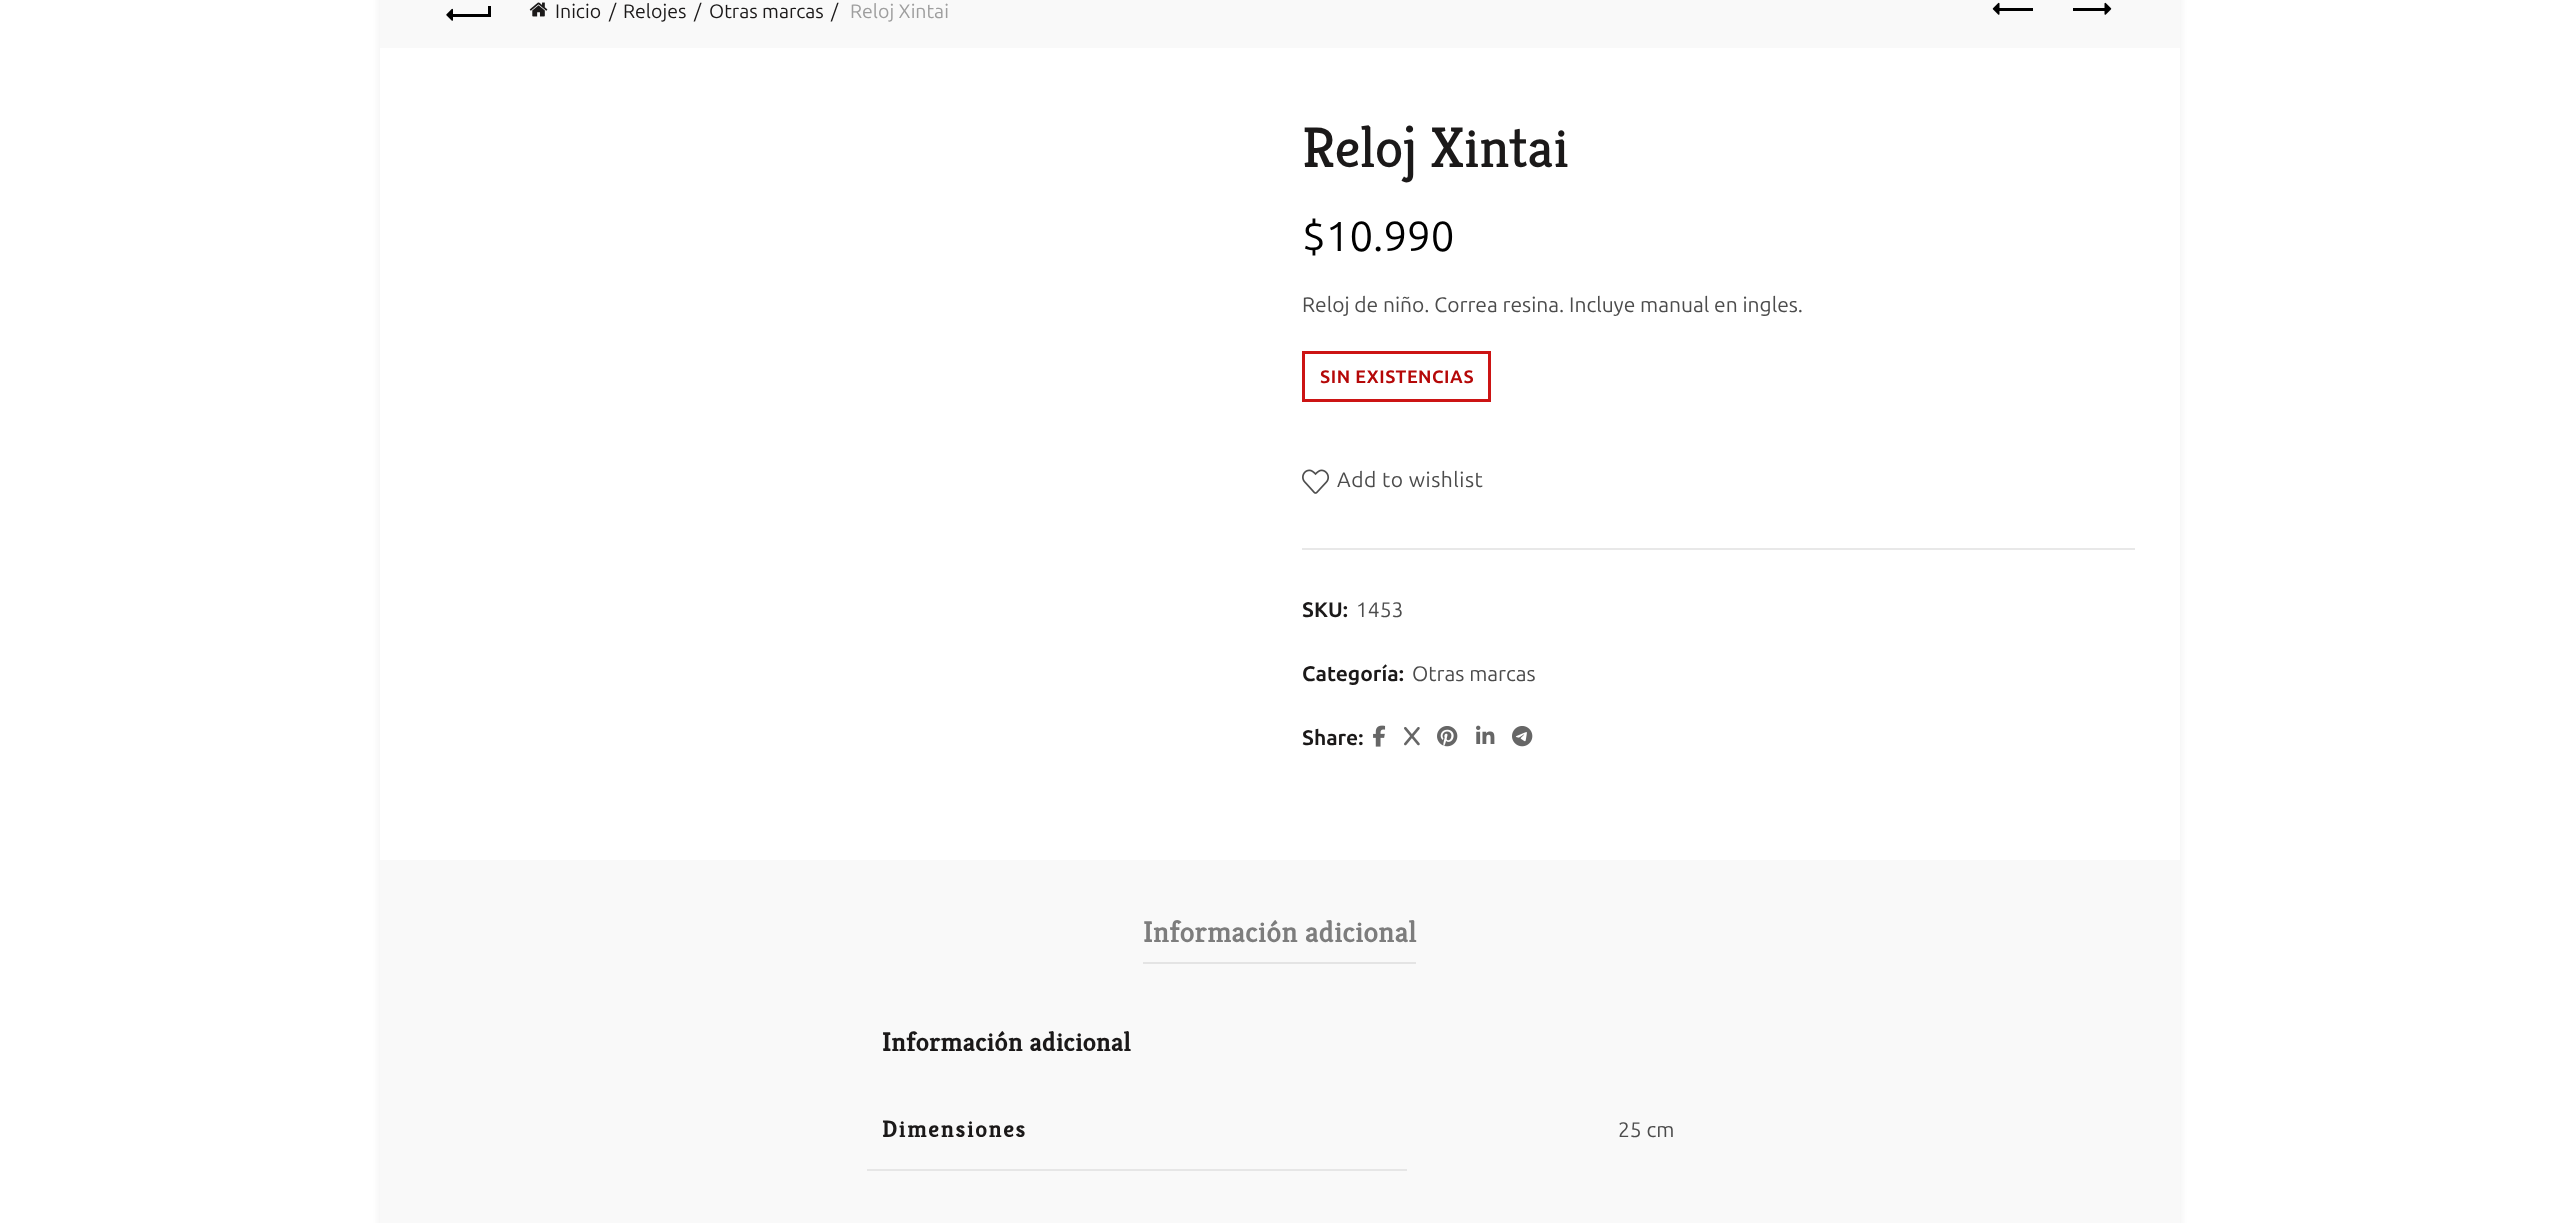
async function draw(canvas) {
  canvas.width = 2559
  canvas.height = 1223
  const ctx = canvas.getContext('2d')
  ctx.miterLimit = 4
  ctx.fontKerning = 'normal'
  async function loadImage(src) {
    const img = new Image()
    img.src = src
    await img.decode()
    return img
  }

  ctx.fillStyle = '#fff'
  ctx.fillRect(0, 0, 2559, 1223)
  ctx.fillStyle = '#bebebe42'
  ctx.filter = 'blur(4px)'
  ctx.beginPath()
  ctx.rect(380, -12, 1800, 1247)
  ctx.fill()
  ctx.filter = 'none'
  ctx.fillStyle = '#fff'
  ctx.fillRect(380, 48, 1800, 812)
  ctx.fillStyle = '#f9f9f9'
  ctx.fillRect(380, 0, 1800, 48)
  ctx.fillStyle = '#000'
  ctx.fillRect(452, 14, 37, 3)
  ctx.drawImage(await loadImage('image0.png'), 446, 8, 7, 13)
  ctx.fillRect(488, 6, 3, 11)
  ctx.drawImage(await loadImage('image1.png'), 529, 2, 19, 15)
  ctx.font = '19.5px Ubuntu'
  ctx.fillStyle = '#1b1919'
  ctx.fillText('Inicio', 555, 18)
  ctx.fillText('/', 609, 18)
  ctx.fillText('Relojes', 623, 18)
  ctx.fillText('/', 694, 18)
  ctx.fillText('Otras marcas', 709, 18)
  ctx.fillText('/', 831, 18)
  ctx.fillStyle = '#9e9e9e'
  ctx.fillText('Reloj Xintai', 850, 18)
  ctx.fillStyle = '#000'
  ctx.fillRect(1998, 8, 35, 3)
  ctx.drawImage(await loadImage('image2.png'), 1992, 2, 8, 13)
  ctx.fillRect(2073, 8, 35, 3)
  ctx.drawImage(await loadImage('image3.png'), 2104, 2, 8, 13)
  ctx.font = '57px Kreon'
  ctx.fillStyle = '#1b1919'
  ctx.fillText('Reloj Xintai', 1302, 167)
  ctx.font = '42px Ubuntu'
  ctx.fillStyle = '#000'
  ctx.fillText('$10.990', 1302, 251)
  ctx.font = '21px Ubuntu'
  ctx.fillStyle = '#4c4c4c'
  ctx.fillText('Reloj de niño. Correa resina. Incluye manual en ingles.', 1302, 312)
  ctx.strokeStyle = '#cc1414'
  ctx.lineWidth = 3
  ctx.strokeRect(1303.5, 352.5, 186, 48)
  ctx.letterSpacing = '0.5px'
  ctx.font = 'bold 18px Ubuntu'
  ctx.fillStyle = '#b50808'
  ctx.fillText('SIN EXISTENCIAS', 1320, 383)
  ctx.drawImage(await loadImage('image4.png'), 1302, 469, 28, 25)
  ctx.font = '21px Ubuntu'
  ctx.fillStyle = '#4c4c4c'
  ctx.fillText('Add to wishlist', 1337, 487)
  ctx.fillStyle = '#e8e8e8'
  ctx.fillRect(1302, 548, 833, 2)
  ctx.letterSpacing = '0px'
  ctx.font = 'bold 21px Ubuntu'
  ctx.fillStyle = '#1b1919'
  ctx.fillText('SKU:', 1302, 617)
  ctx.font = '21px Ubuntu'
  ctx.fillStyle = '#4c4c4c'
  ctx.fillText('1453', 1356, 617)
  ctx.font = 'bold 21px Ubuntu'
  ctx.fillStyle = '#1b1919'
  ctx.fillText('Categoría:', 1302, 681)
  ctx.font = '21px Ubuntu'
  ctx.fillStyle = '#4c4c4c'
  ctx.fillText('Otras marcas', 1412, 681)
  ctx.font = 'bold 21px Ubuntu'
  ctx.fillStyle = '#1b1919'
  ctx.fillText('Share:', 1302, 745)
  ctx.drawImage(await loadImage('image5.png'), 1373, 725, 13, 22)
  ctx.drawImage(await loadImage('image6.png'), 1404, 727, 16, 19)
  ctx.drawImage(await loadImage('image7.png'), 1437, 726, 21, 21)
  ctx.drawImage(await loadImage('image8.png'), 1476, 725, 19, 19)
  ctx.drawImage(await loadImage('image9.png'), 1512, 726, 21, 21)
  ctx.fillStyle = '#f9f9f9'
  ctx.fillRect(380, 860, 1800, 363)
  ctx.fillStyle = '#e4e4e4'
  ctx.fillRect(1143, 962, 273, 2)
  ctx.font = '600 30px Kreon'
  ctx.fillStyle = '#7d7d7d'
  ctx.fillText('Información adicional', 1143, 942)
  ctx.font = 'bold 27px Kreon'
  ctx.fillStyle = '#1b1919'
  ctx.fillText('Información adicional', 882, 1051)
  ctx.fillStyle = '#e6e6e6'
  ctx.fillRect(867, 1169, 540, 2)
  ctx.letterSpacing = '1.5px'
  ctx.font = 'bold 24px Kreon'
  ctx.fillStyle = '#1b1919'
  ctx.fillText('Dimensiones', 882, 1137)
  ctx.letterSpacing = '0px'
  ctx.font = '21px Ubuntu'
  ctx.fillStyle = '#4c4c4c'
  ctx.fillText('25 cm', 1618, 1137)
}

draw(document.querySelector('canvas'))
